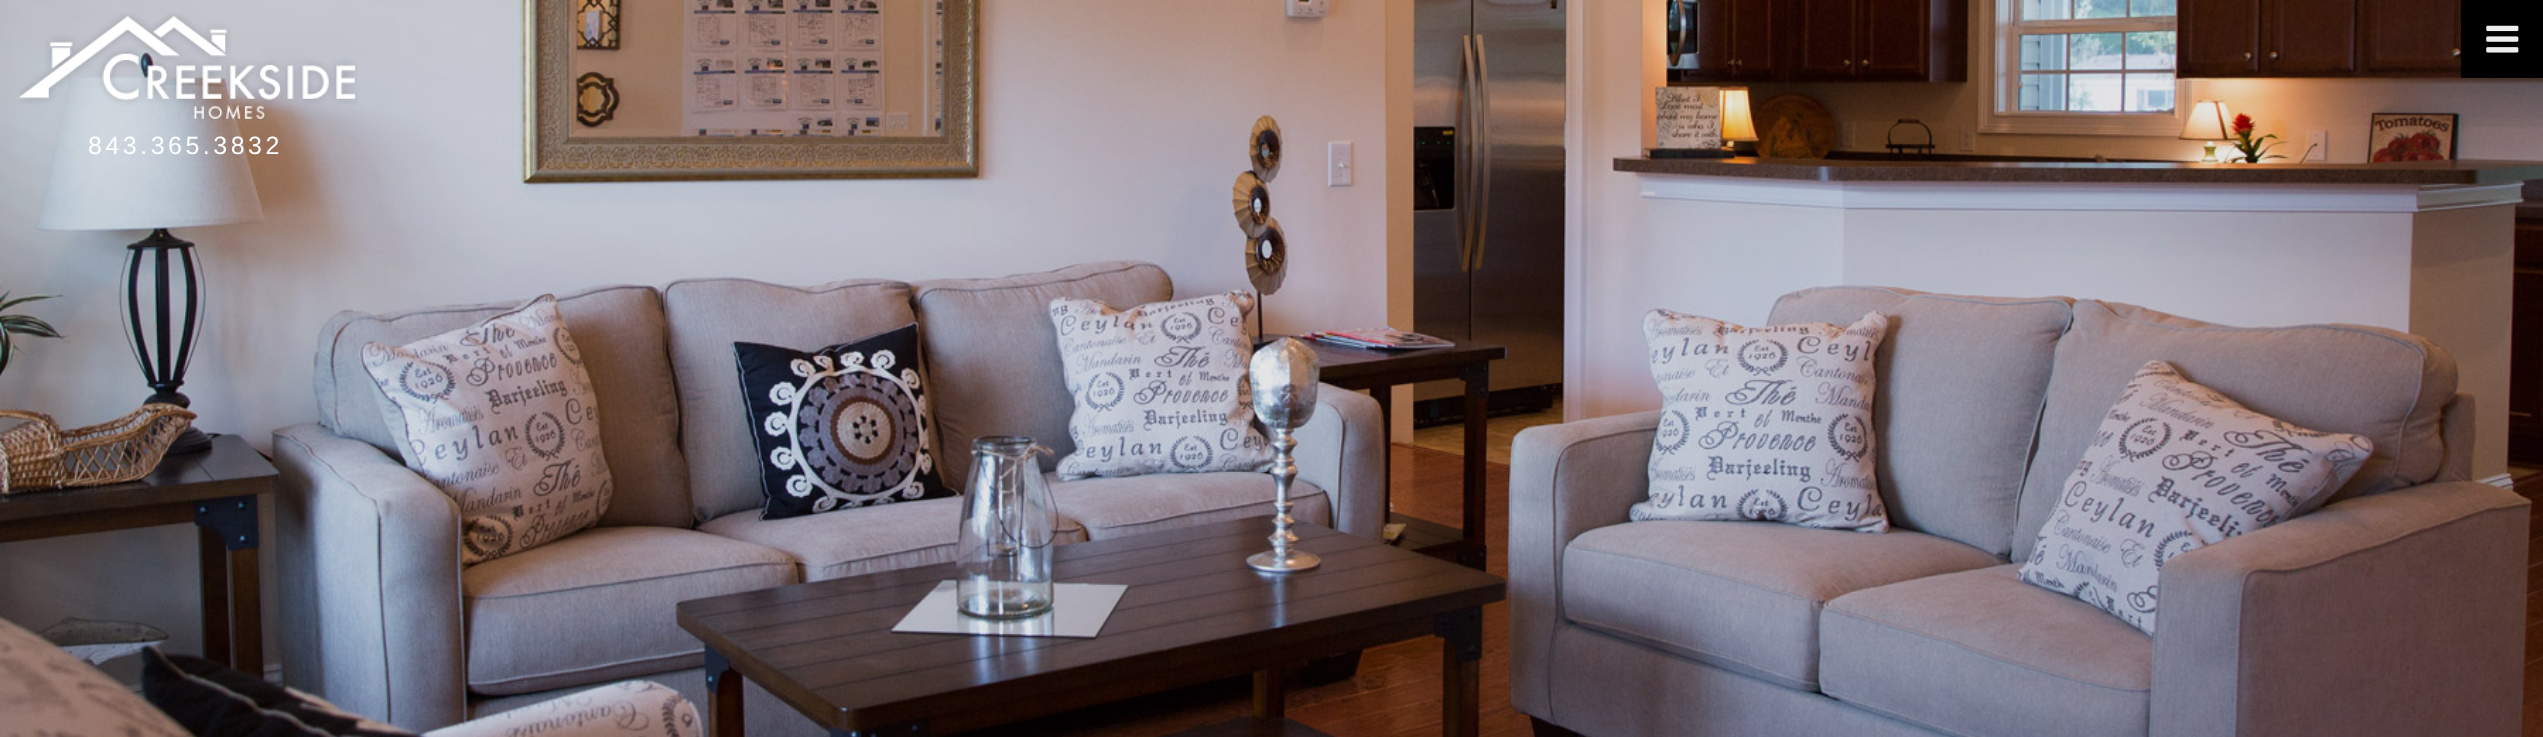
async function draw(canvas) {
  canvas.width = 2543
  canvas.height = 737
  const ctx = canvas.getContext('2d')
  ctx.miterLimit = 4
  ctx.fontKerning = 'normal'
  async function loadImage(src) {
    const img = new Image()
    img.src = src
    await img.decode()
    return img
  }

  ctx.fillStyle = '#fff'
  ctx.fillRect(0, 0, 2543, 737)
  ctx.drawImage(await loadImage('image1.png'), 0, 0, 2543, 737)
  ctx.fillStyle = '#000'
  ctx.fillRect(2461, 0, 82, 78)
  ctx.drawImage(await loadImage('image0.png'), 2486, 25, 33, 28)
  ctx.drawImage(await loadImage('image2.png'), 19, 13, 339, 107)
  ctx.letterSpacing = '3.5px'
  ctx.font = '25px Liberation Sans'
  ctx.fillStyle = '#fff'
  ctx.fillText('843.365.3832', 88, 154)
}

draw(document.querySelector('canvas'))
